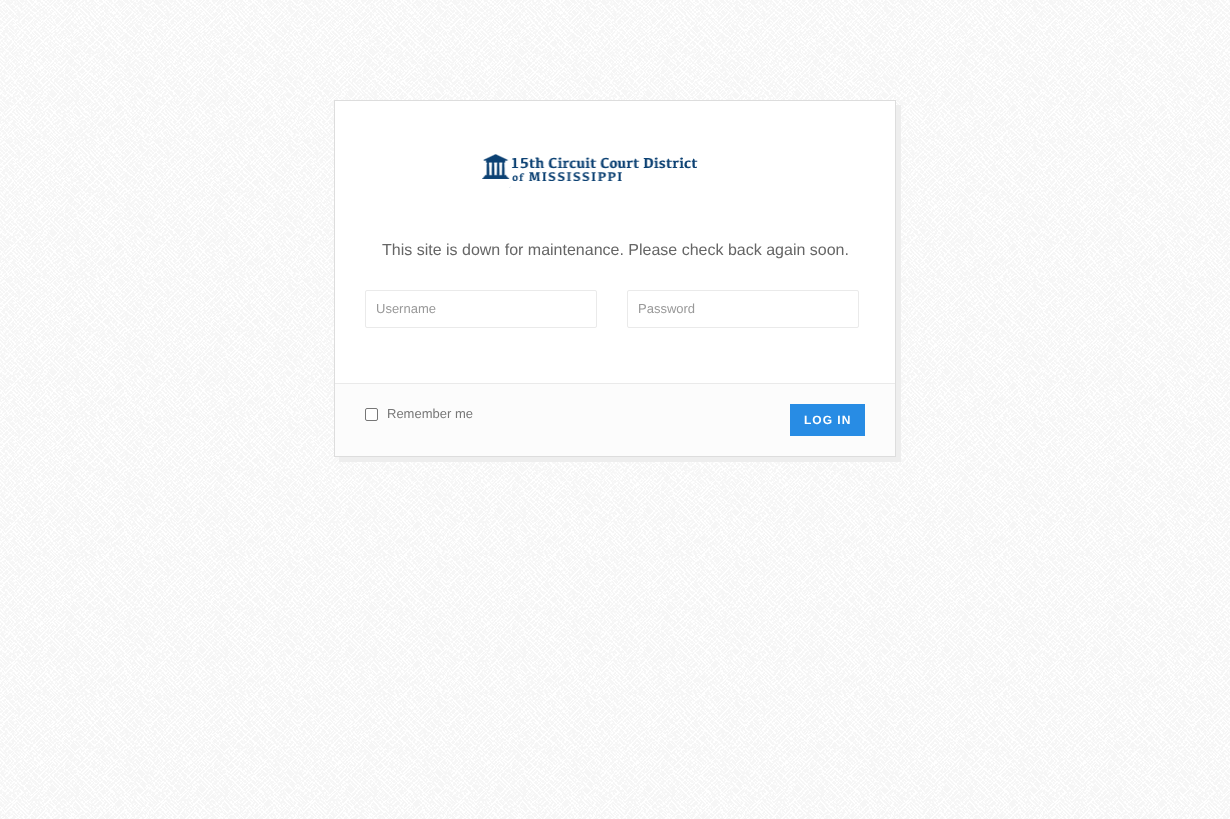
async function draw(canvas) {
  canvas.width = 1230
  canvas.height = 819
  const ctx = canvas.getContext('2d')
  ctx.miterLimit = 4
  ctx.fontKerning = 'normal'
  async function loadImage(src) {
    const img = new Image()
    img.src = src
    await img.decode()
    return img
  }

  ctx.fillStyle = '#fff'
  ctx.fillRect(0, 0, 1230, 819)
  ctx.drawImage(await loadImage('image0.png'), 0, 0, 1230, 819)
  ctx.fillStyle = '#eee'
  ctx.beginPath()
  ctx.moveTo(339, 457)
  ctx.lineTo(339, 462)
  ctx.lineTo(901, 462)
  ctx.lineTo(901, 105)
  ctx.lineTo(896, 105)
  ctx.lineTo(896, 457)
  ctx.closePath()
  ctx.fill()
  ctx.fillStyle = '#fff'
  ctx.fillRect(335, 101, 560, 282)
  ctx.strokeStyle = '#ddd'
  ctx.strokeRect(334.5, 100.5, 561, 356)
  ctx.drawImage(await loadImage('image1.png'), 482, 154, 216, 34)
  ctx.font = '16px Liberation Sans'
  ctx.fillStyle = '#666'
  ctx.fillText('This site is down for maintenance. Please check back again soon.', 382, 255)
  ctx.beginPath()
  ctx.roundRect(365.5, 290.5, 231, 37, 1.5)
  ctx.strokeStyle = '#eaeaea'
  ctx.stroke()
  ctx.font = '13px Liberation Sans'
  ctx.fillStyle = '#999'
  ctx.fillText('Username', 376, 313)
  ctx.beginPath()
  ctx.roundRect(627.5, 290.5, 231, 37, 1.5)
  ctx.stroke()
  ctx.fillText('Password', 638, 313)
  ctx.fillStyle = '#fcfcfc'
  ctx.fillRect(335, 384, 560, 72)
  ctx.fillStyle = '#eaeaea'
  ctx.fillRect(335, 383, 560, 1)
  ctx.fillStyle = '#fff'
  ctx.beginPath()
  ctx.roundRect(365.5, 408.5, 12, 12, 1.5)
  ctx.fill()
  ctx.strokeStyle = '#767676'
  ctx.stroke()
  ctx.fillStyle = '#777'
  ctx.fillText('Remember me', 387, 418)
  ctx.fillStyle = '#288ce4'
  ctx.fillRect(790, 404, 75, 32)
  ctx.letterSpacing = '1px'
  ctx.font = 'bold 12px Liberation Sans'
  ctx.fillStyle = '#fff'
  ctx.fillText('LOG IN', 804, 424)
}

draw(document.querySelector('canvas'))
